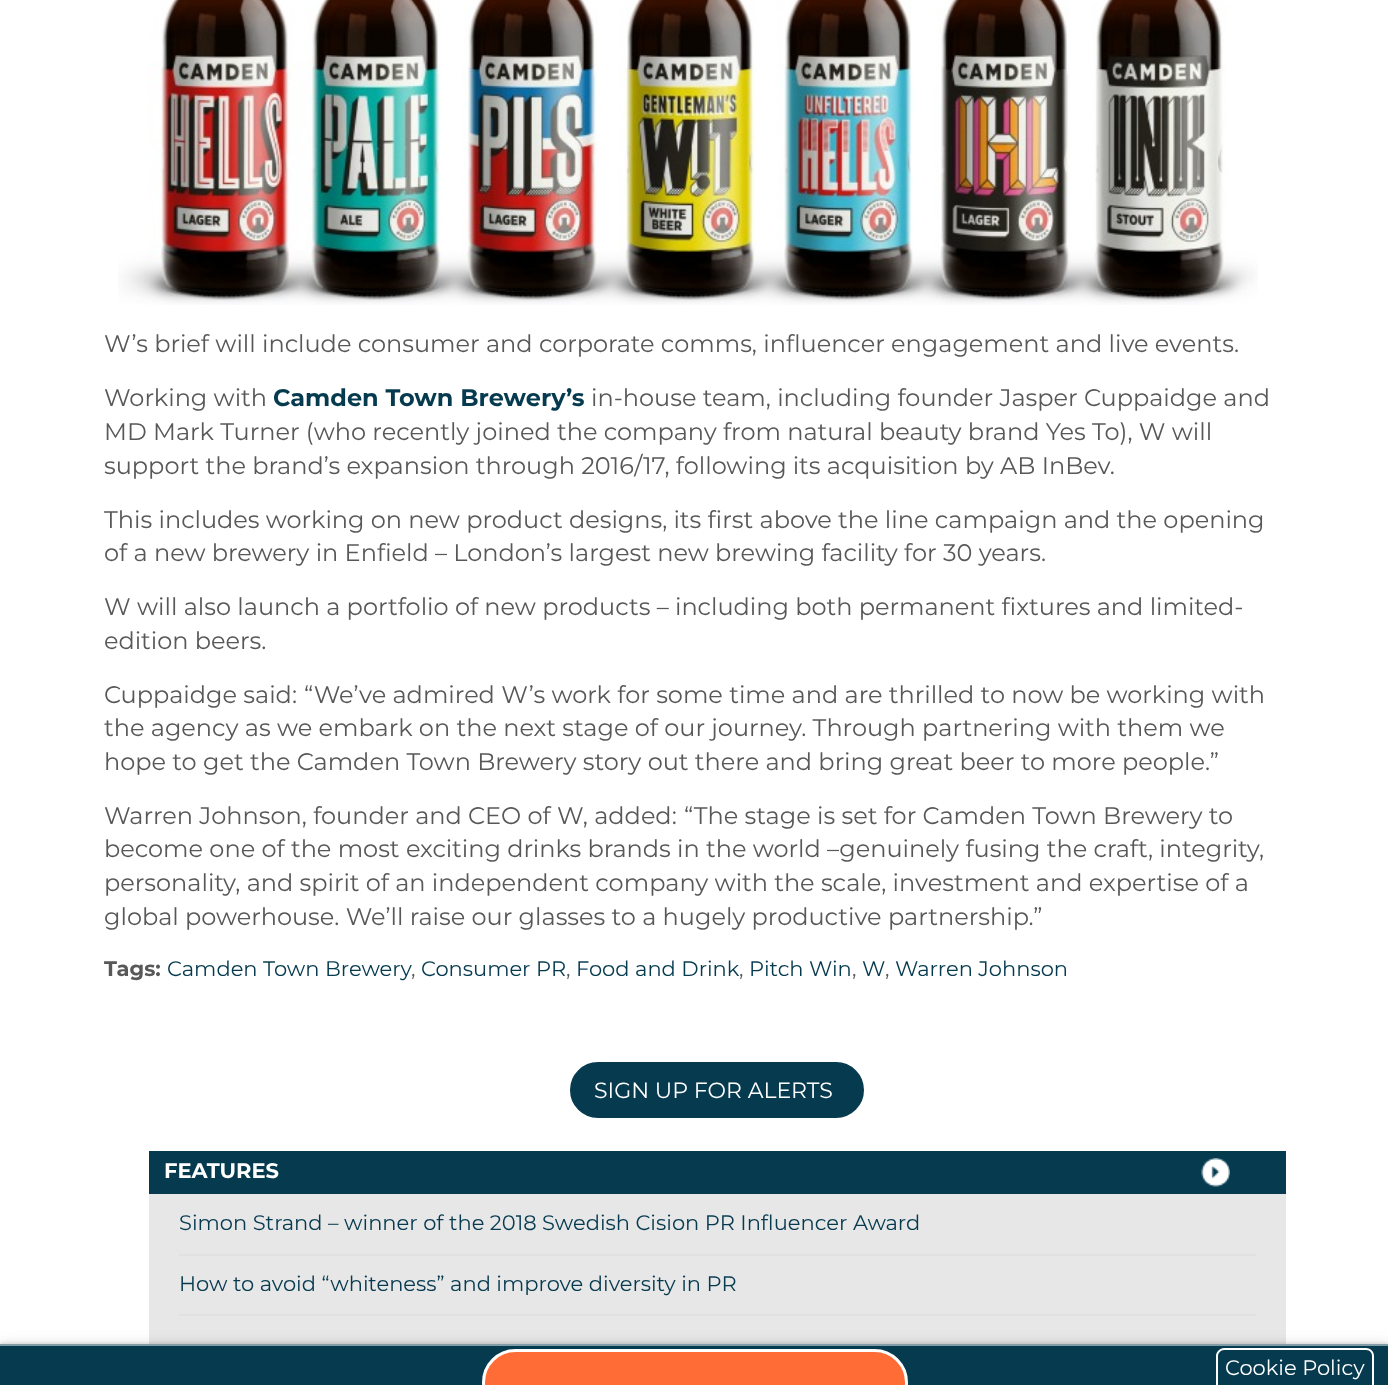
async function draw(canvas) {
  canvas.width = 1388
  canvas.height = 1385
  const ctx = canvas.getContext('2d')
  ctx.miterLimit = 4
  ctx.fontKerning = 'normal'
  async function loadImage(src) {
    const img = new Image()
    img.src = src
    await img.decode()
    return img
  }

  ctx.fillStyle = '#fff'
  ctx.fillRect(0, 0, 1388, 1385)
  ctx.drawImage(await loadImage('image0.png'), 118, 0, 1140, 305)
  ctx.font = '24px Montserrat'
  ctx.fillStyle = '#585858'
  ctx.fillText('W’s brief will include consumer and corporate comms, influencer engagement and live events.', 104, 352)
  ctx.fillText('Working with', 104, 406)
  ctx.font = 'bold 24px Montserrat'
  ctx.fillStyle = '#053a4f'
  ctx.fillText('Camden Town Brewery’s', 273, 406)
  ctx.font = '24px Montserrat'
  ctx.fillStyle = '#585858'
  ctx.fillText('in-house team, including founder Jasper Cuppaidge and', 591, 406)
  ctx.fillText('MD Mark Turner (who recently joined the company from natural beauty brand Yes To), W will', 104, 440)
  ctx.fillText('support the brand’s expansion through 2016/17, following its acquisition by AB InBev.', 104, 474)
  ctx.fillText('This includes working on new product designs, its first above the line campaign and the opening', 104, 528)
  ctx.fillText('of a new brewery in Enfield – London’s largest new brewing facility for 30 years.', 104, 561)
  ctx.fillText('W will also launch a portfolio of new products – including both permanent fixtures and limited-', 104, 615)
  ctx.fillText('edition beers.', 104, 649)
  ctx.fillText('Cuppaidge said:', 104, 703)
  ctx.fillText('“We’ve admired W’s work for some time and are thrilled to now be working with', 304, 703)
  ctx.fillText('the agency as we embark on the next stage of our journey. Through partnering with them we', 104, 736)
  ctx.fillText('hope to get the Camden Town Brewery story out there and bring great beer to more people.”', 104, 770)
  ctx.fillText('Warren Johnson, founder and CEO of W, added:', 104, 824)
  ctx.fillText('“The stage is set for Camden Town Brewery to', 684, 824)
  ctx.fillText('become one of the most exciting drinks brands in the world –genuinely fusing the craft, integrity,', 104, 857)
  ctx.fillText('personality, and spirit of an independent company with the scale, investment and expertise of a', 104, 891)
  ctx.fillText('global powerhouse. We’ll raise our glasses to a hugely productive partnership.”', 104, 925)
  ctx.font = 'bold 21px Montserrat'
  ctx.fillText('Tags:', 104, 976)
  ctx.font = '21px Montserrat'
  ctx.fillStyle = '#053a4f'
  ctx.fillText('Camden Town Brewery', 167, 976)
  ctx.fillStyle = '#585858'
  ctx.fillText(',', 411, 976)
  ctx.fillStyle = '#053a4f'
  ctx.fillText('Consumer PR', 421, 976)
  ctx.fillStyle = '#585858'
  ctx.fillText(',', 566, 976)
  ctx.fillStyle = '#053a4f'
  ctx.fillText('Food and Drink', 576, 976)
  ctx.fillStyle = '#585858'
  ctx.fillText(',', 739, 976)
  ctx.fillStyle = '#053a4f'
  ctx.fillText('Pitch Win', 749, 976)
  ctx.fillStyle = '#585858'
  ctx.fillText(',', 852, 976)
  ctx.fillStyle = '#053a4f'
  ctx.fillText('W', 862, 976)
  ctx.fillStyle = '#585858'
  ctx.fillText(',', 885, 976)
  ctx.fillStyle = '#053a4f'
  ctx.fillText('Warren Johnson', 895, 976)
  ctx.beginPath()
  ctx.roundRect(568.5, 1060.5, 297, 59, 29.5)
  ctx.fill()
  ctx.strokeStyle = '#fff'
  ctx.lineWidth = 3
  ctx.stroke()
  ctx.font = '22px Montserrat'
  ctx.fillStyle = '#fff'
  ctx.fillText('SIGN UP FOR ALERTS', 594, 1098)
  ctx.fillStyle = '#053a4f'
  ctx.fillRect(149, 1151, 1137, 43)
  ctx.drawImage(await loadImage('image1.png'), 1201, 1158, 29, 29)
  ctx.font = 'bold 21px Montserrat'
  ctx.fillStyle = '#fff'
  ctx.fillText('FEATURES', 164, 1178)
  ctx.fillStyle = '#e8e7e7'
  ctx.fillRect(149, 1194, 1137, 150)
  ctx.fillStyle = '#e1e1e1'
  ctx.fillRect(179, 1254, 1077, 2)
  ctx.font = '21px Montserrat'
  ctx.fillStyle = '#053a4f'
  ctx.fillText('Simon Strand – winner of the 2018 Swedish Cision PR Influencer Award', 179, 1230)
  ctx.fillStyle = '#e1e1e1'
  ctx.fillRect(179, 1314, 1077, 2)
  ctx.fillStyle = '#053a4f'
  ctx.fillText('How to avoid “whiteness” and improve diversity in PR', 179, 1291)
  ctx.fillStyle = '#0000000d'
  ctx.filter = 'blur(7.5px)'
  ctx.beginPath()
  ctx.rect(0, 1343, 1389, 42)
  ctx.fill()
  ctx.filter = 'none'
  ctx.fillStyle = '#00000012'
  ctx.filter = 'blur(4px)'
  ctx.beginPath()
  ctx.rect(0, 1343, 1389, 42)
  ctx.fill()
  ctx.filter = 'none'
  ctx.fillStyle = '#0000001a'
  ctx.filter = 'blur(1.5px)'
  ctx.beginPath()
  ctx.rect(0, 1343, 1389, 42)
  ctx.fill()
  ctx.filter = 'none'
  ctx.fillStyle = '#053a4f'
  ctx.fillRect(0, 1346, 1388, 39)
  ctx.fillStyle = '#829da7'
  ctx.fillRect(0, 1344, 1388, 2)
  ctx.fillStyle = '#ff6c36'
  ctx.beginPath()
  ctx.roundRect(483.5, 1350.5, 423, 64, 32)
  ctx.fill()
  ctx.stroke()
  ctx.fillStyle = '#fff'
  ctx.beginPath()
  ctx.moveTo(1224, 1348)
  ctx.lineTo(1366, 1348)
  ctx.bezierCurveTo(1371, 1348, 1374, 1352, 1374, 1356)
  ctx.lineTo(1374, 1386)
  ctx.lineTo(1216, 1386)
  ctx.lineTo(1216, 1356)
  ctx.bezierCurveTo(1216, 1352, 1220, 1348, 1224, 1348)
  ctx.closePath()
  ctx.moveTo(1224, 1350)
  ctx.lineTo(1366, 1350)
  ctx.bezierCurveTo(1370, 1350, 1372, 1353, 1372, 1356)
  ctx.lineTo(1372, 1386)
  ctx.lineTo(1218, 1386)
  ctx.lineTo(1218, 1356)
  ctx.bezierCurveTo(1218, 1353, 1221, 1350, 1224, 1350)
  ctx.closePath()
  ctx.fill('evenodd')
  ctx.fillText('Cookie Policy', 1225, 1375)
}

draw(document.querySelector('canvas'))
